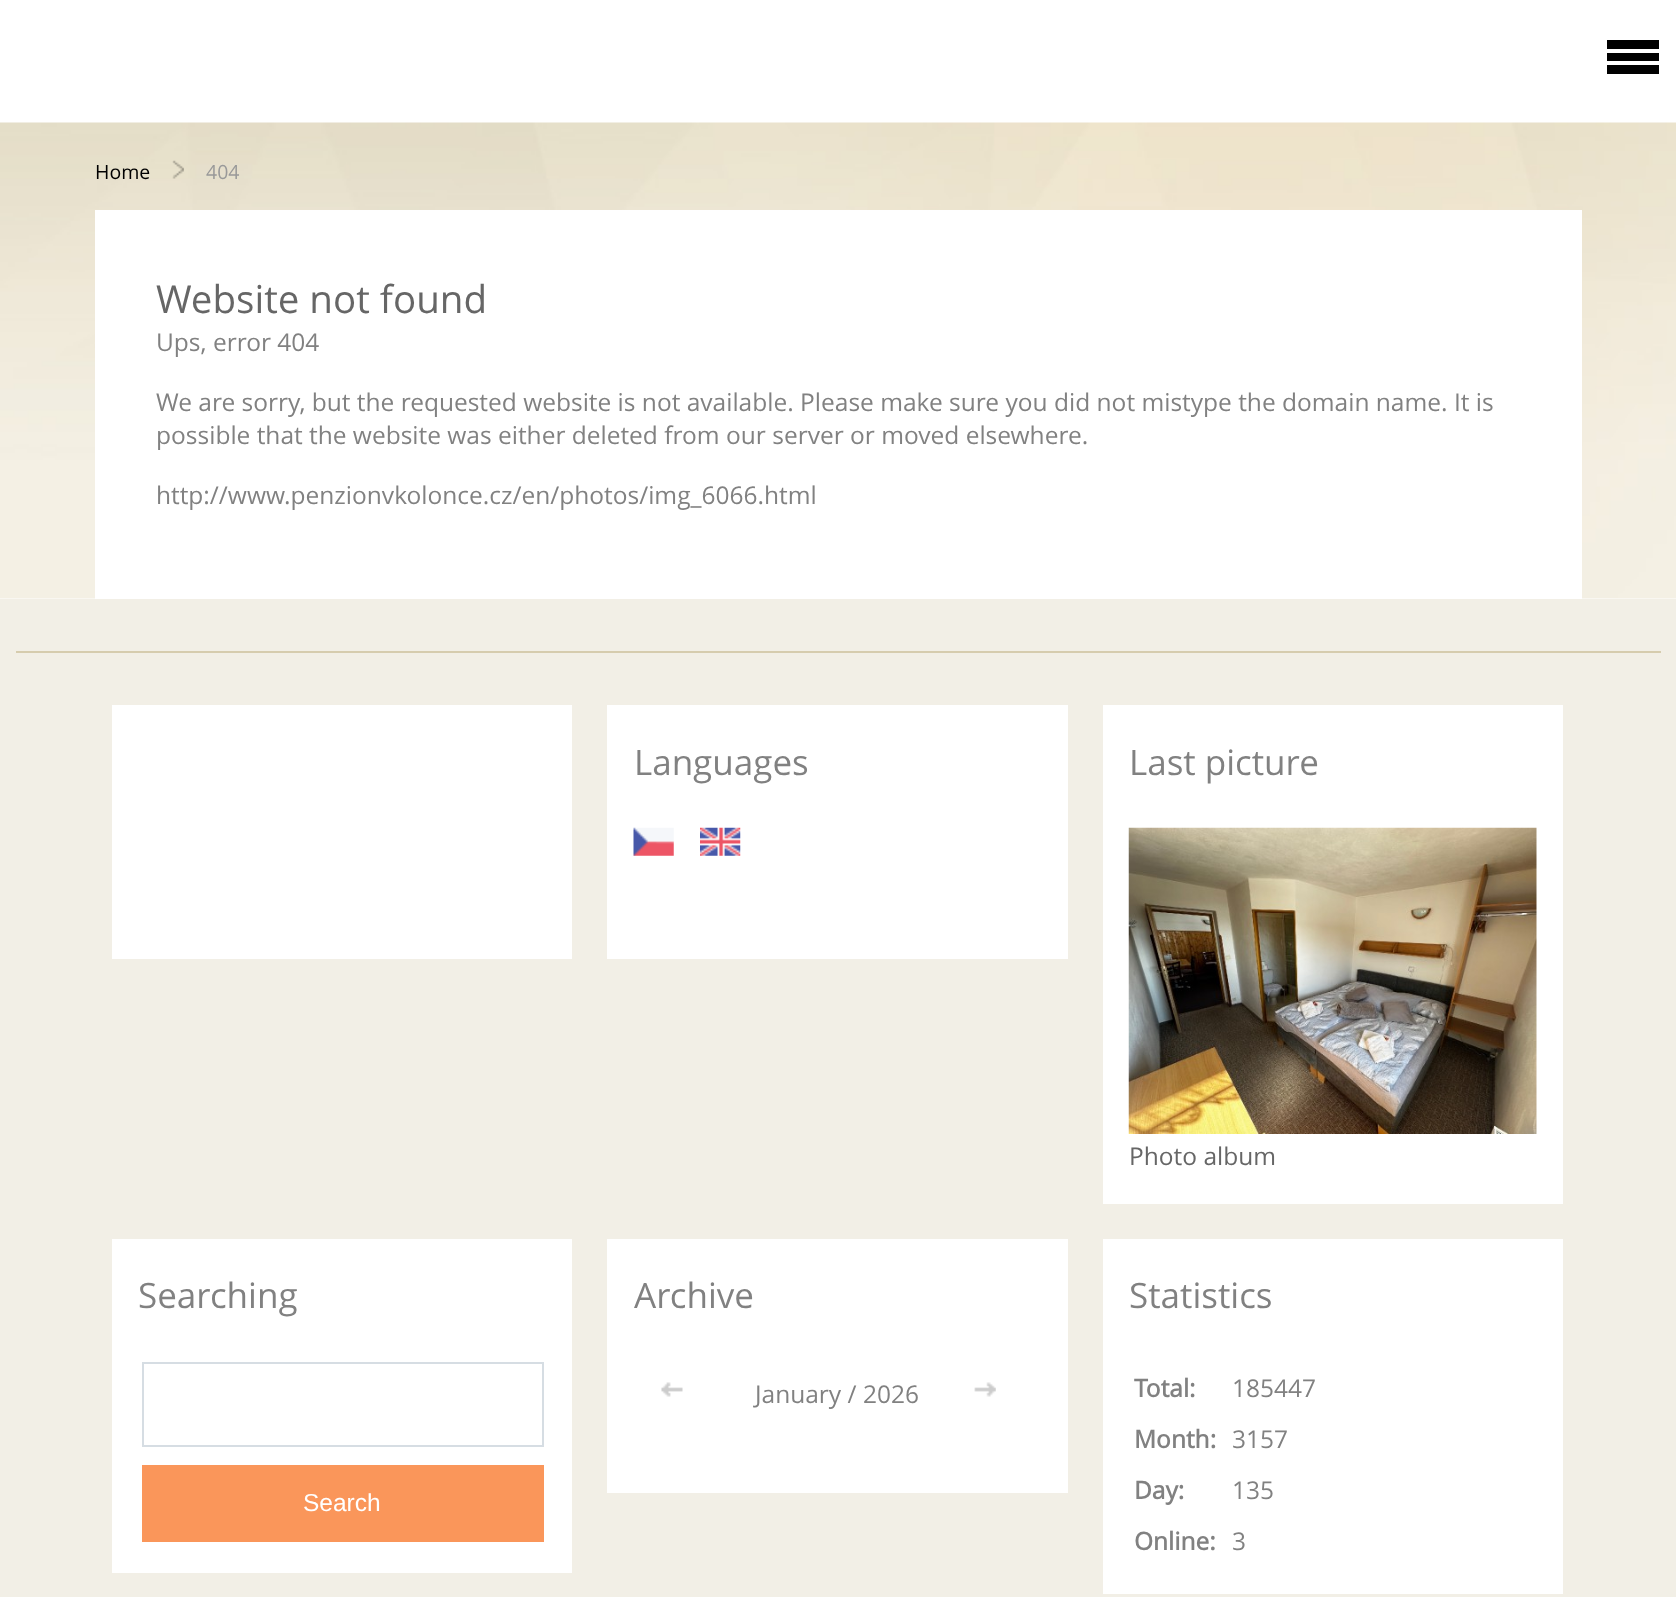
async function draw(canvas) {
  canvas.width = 1676
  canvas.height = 1597
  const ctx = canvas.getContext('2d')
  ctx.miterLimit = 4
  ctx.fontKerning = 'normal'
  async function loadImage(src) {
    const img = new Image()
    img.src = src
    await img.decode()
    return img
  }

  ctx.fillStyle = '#f2efe6'
  ctx.fillRect(0, 0, 1676, 1597)
  ctx.fillStyle = '#fff'
  ctx.fillRect(0, 0, 1676, 123)
  ctx.fillStyle = '#000'
  ctx.fillRect(1607, 40, 52, 9)
  ctx.fillRect(1607, 53, 52, 8)
  ctx.fillRect(1607, 65, 52, 9)
  ctx.fillStyle = '#fff'
  ctx.fillRect(0, 598, 1676, 1)
  ctx.drawImage(await loadImage('image0.png'), 0, 122, 1676, 477)
  ctx.font = '19.5px Open Sans'
  ctx.fillStyle = '#000'
  ctx.fillText('Home', 95, 179)
  ctx.drawImage(await loadImage('image1.png'), 172, 160, 12, 19)
  ctx.fillStyle = '#999'
  ctx.fillText('404', 206, 179)
  ctx.fillStyle = '#fff'
  ctx.fillRect(95, 210, 1487, 389)
  ctx.font = '38.5px Open Sans'
  ctx.fillStyle = '#666'
  ctx.fillText('Website not found', 156, 313)
  ctx.font = '24.5px Open Sans'
  ctx.fillStyle = '#818181'
  ctx.fillText('Ups, error 404', 156, 351)
  ctx.fillText('We are sorry, but the requested website is not available. Please make sure you did not mistype the domain name. It is', 156, 411)
  ctx.fillText('possible that the website was either deleted from our server or moved elsewhere.', 156, 444)
  ctx.fillText('http://www.penzionvkolonce.cz/en/photos/img_6066.html', 156, 504)
  ctx.fillStyle = '#d6ccae'
  ctx.fillRect(16, 651, 1645, 2)
  ctx.fillStyle = '#fff'
  ctx.fillRect(112, 705, 460, 254)
  ctx.fillRect(607, 705, 461, 254)
  ctx.font = '35px Open Sans'
  ctx.fillStyle = '#818181'
  ctx.fillText('Languages', 634, 775)
  ctx.drawImage(await loadImage('image2.png'), 633, 827, 41, 29)
  ctx.drawImage(await loadImage('image3.png'), 700, 827, 41, 29)
  ctx.fillStyle = '#fff'
  ctx.fillRect(1103, 705, 460, 499)
  ctx.fillStyle = '#818181'
  ctx.fillText('Last picture', 1129, 775)
  ctx.drawImage(await loadImage('image4.png'), 1128, 827, 409, 307)
  ctx.font = '24.5px Open Sans'
  ctx.fillStyle = '#666'
  ctx.fillText('Photo album', 1129, 1165)
  ctx.fillStyle = '#fff'
  ctx.fillRect(112, 1239, 460, 334)
  ctx.font = '35px Open Sans'
  ctx.fillStyle = '#818181'
  ctx.fillText('Searching', 138, 1308)
  ctx.strokeStyle = '#d6dde3'
  ctx.lineWidth = 2
  ctx.strokeRect(143, 1363, 400, 83)
  ctx.fillStyle = '#fa965a'
  ctx.fillRect(142, 1465, 402, 77)
  ctx.font = '24.5px Liberation Sans'
  ctx.fillStyle = '#fff'
  ctx.fillText('Search', 303, 1511)
  ctx.fillRect(607, 1239, 461, 254)
  ctx.font = '35px Open Sans'
  ctx.fillStyle = '#818181'
  ctx.fillText('Archive', 634, 1308)
  ctx.drawImage(await loadImage('image5.png'), 661, 1382, 22, 15)
  ctx.font = '24.5px Open Sans'
  ctx.fillText('January / 2026', 755, 1403)
  ctx.drawImage(await loadImage('image6.png'), 974, 1382, 22, 15)
  ctx.fillStyle = '#fff'
  ctx.fillRect(1103, 1239, 460, 355)
  ctx.font = '35px Open Sans'
  ctx.fillStyle = '#818181'
  ctx.fillText('Statistics', 1129, 1308)
  ctx.font = 'bold 24.5px Open Sans'
  ctx.fillText('Total:', 1134, 1397)
  ctx.font = '24.5px Open Sans'
  ctx.fillText('185447', 1232, 1397)
  ctx.font = 'bold 24.5px Open Sans'
  ctx.fillText('Month:', 1134, 1448)
  ctx.font = '24.5px Open Sans'
  ctx.fillText('3157', 1232, 1448)
  ctx.font = 'bold 24.5px Open Sans'
  ctx.fillText('Day:', 1134, 1499)
  ctx.font = '24.5px Open Sans'
  ctx.fillText('135', 1232, 1499)
  ctx.font = 'bold 24.5px Open Sans'
  ctx.fillText('Online:', 1134, 1550)
  ctx.font = '24.5px Open Sans'
  ctx.fillText('3', 1232, 1550)
}

draw(document.querySelector('canvas'))
